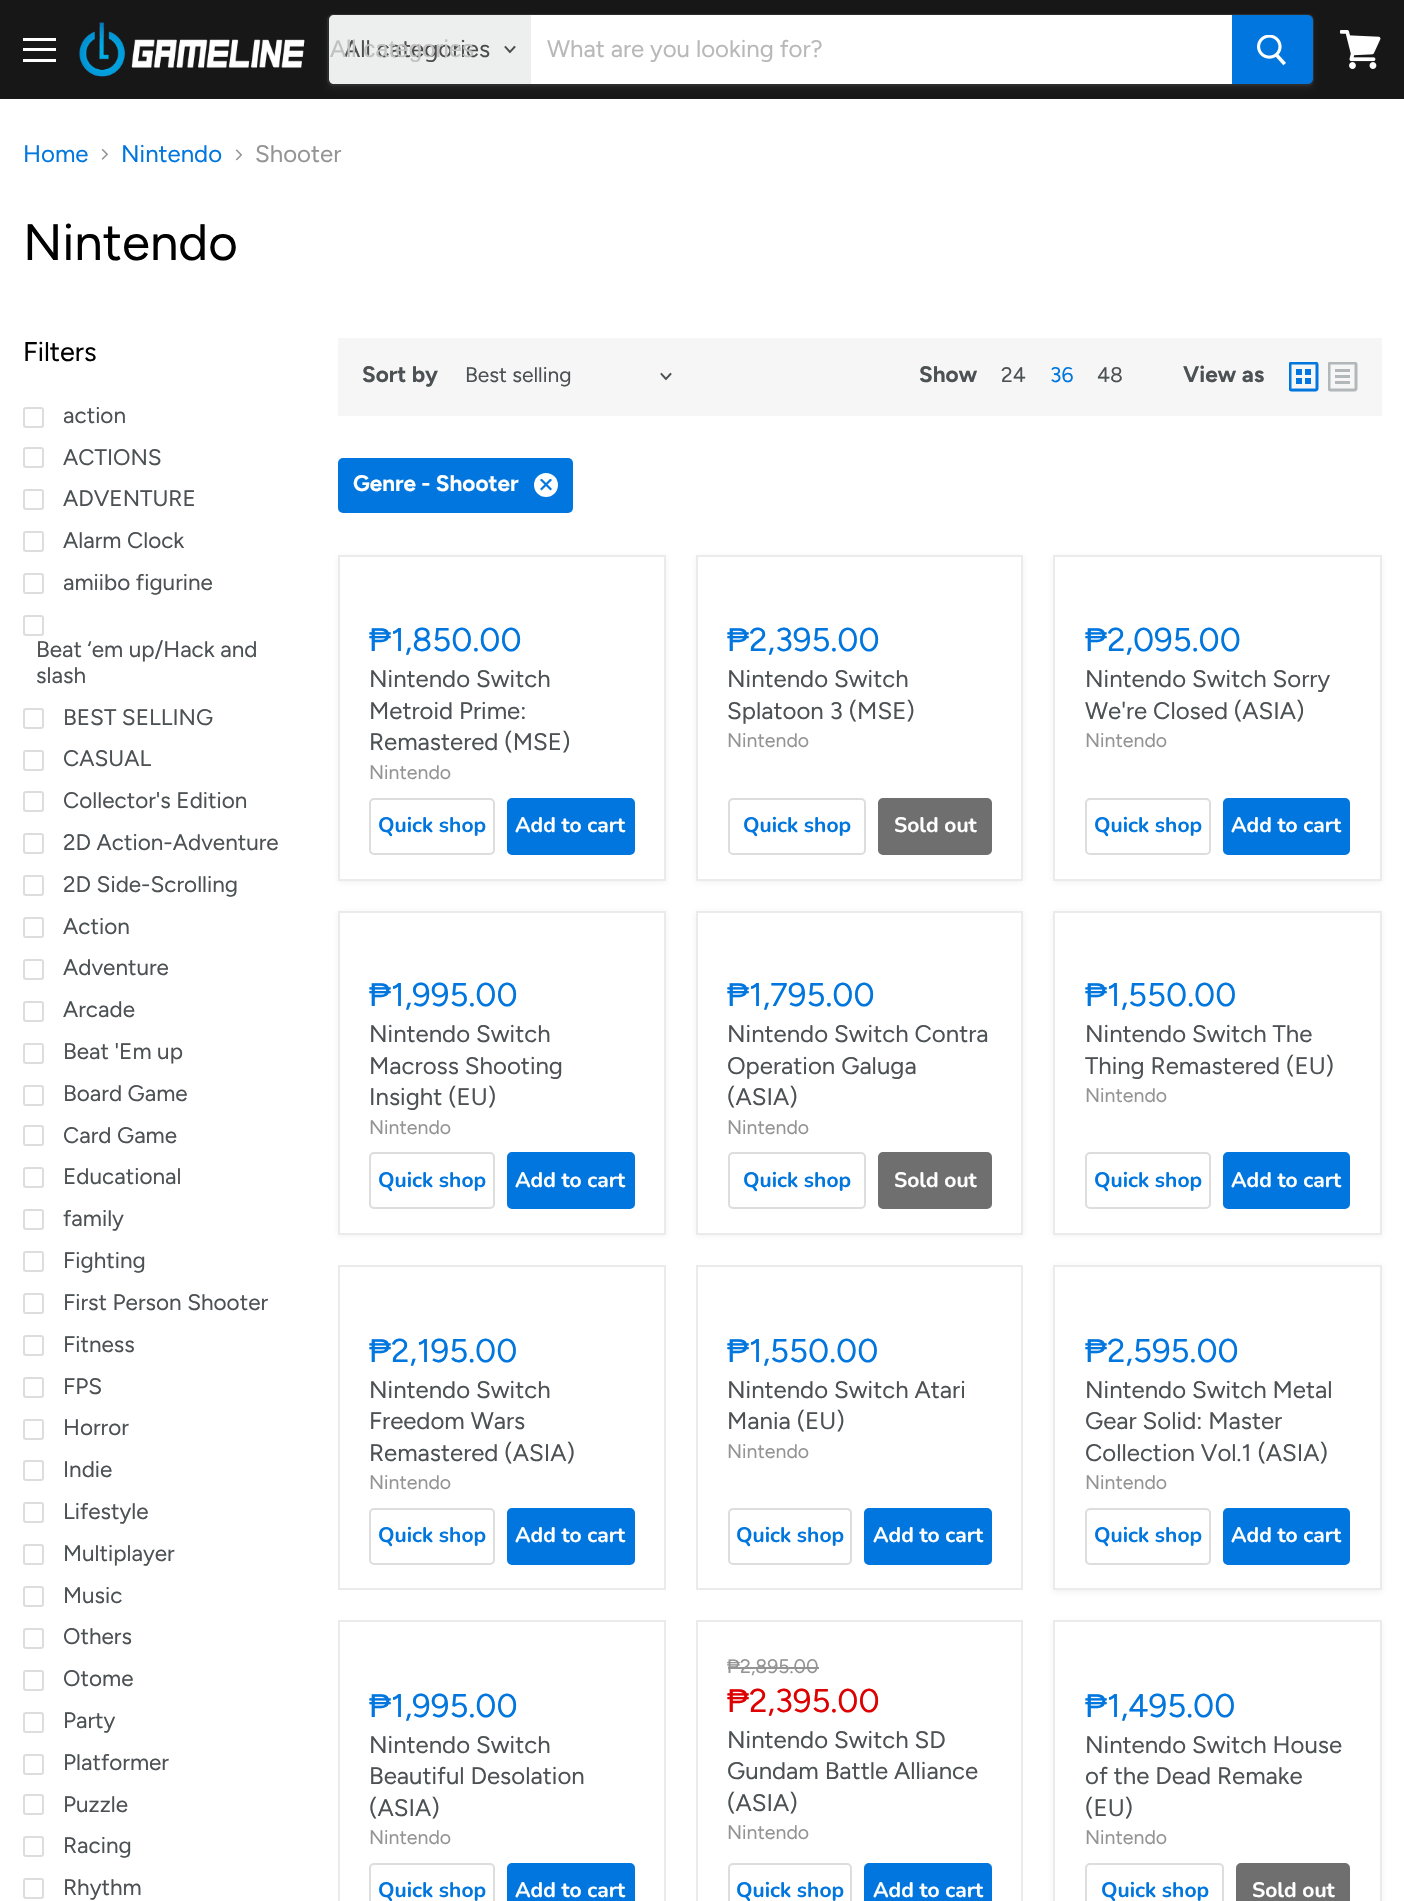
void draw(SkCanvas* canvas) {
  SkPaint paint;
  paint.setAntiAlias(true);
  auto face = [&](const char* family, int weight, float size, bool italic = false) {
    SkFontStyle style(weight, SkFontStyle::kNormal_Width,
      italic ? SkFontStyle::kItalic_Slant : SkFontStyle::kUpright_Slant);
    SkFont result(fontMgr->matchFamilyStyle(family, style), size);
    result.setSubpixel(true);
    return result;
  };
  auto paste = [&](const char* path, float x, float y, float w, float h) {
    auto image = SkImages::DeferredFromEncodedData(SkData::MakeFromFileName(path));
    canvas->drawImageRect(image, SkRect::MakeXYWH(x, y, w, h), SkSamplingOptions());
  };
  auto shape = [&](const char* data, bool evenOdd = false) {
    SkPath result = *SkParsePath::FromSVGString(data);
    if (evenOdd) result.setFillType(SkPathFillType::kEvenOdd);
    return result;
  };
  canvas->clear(0xffffffff);
  {
    const struct { float x, y, w, h; SkColor color; } items[] = {
      {0, 0, 1404, 99, 0xff171717},
      {23, 38, 33, 3, 0xffffffff},
      {23, 48, 33, 3, 0xffffffff},
      {23, 59, 33, 3, 0xffffffff},
    };
    for (auto [x, y, w, h, color] : items) {
      paint.setColor(color);
      canvas->drawRect(SkRect::MakeXYWH(x, y, w, h), paint);
    }
  }
  paste("img/1.png", 79, 22, 226, 55);
  canvas->save();
  canvas->clipPath(shape("M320 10H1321V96H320ZM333 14H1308C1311.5 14 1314 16.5 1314 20V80C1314 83.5 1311.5 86 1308 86H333C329.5 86 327 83.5 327 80V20C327 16.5 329.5 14 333 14Z", true), true);
  paint.setColor(0x1c808080);
  paint.setMaskFilter(SkMaskFilter::MakeBlur(kNormal_SkBlurStyle, 2));
  canvas->drawRoundRect(SkRect::MakeXYWH(327, 17, 987, 72), 6, 6, paint);
  paint.setMaskFilter(nullptr);
  canvas->restore();
  paint.setStroke(true);
  paint.setStrokeWidth(2);
  paint.setColor(0x33808080);
  canvas->drawRoundRect(SkRect::MakeXYWH(328, 15, 985, 70), 5, 5, paint);
  paint.setStroke(false);
  paint.setColor(0xffedeeee);
  canvas->drawPath(shape("M334 15H531V84H334C331 84 329 82 329 79V20C329 17 331 15 334 15Z"), paint);
  paint.setStroke(true);
  paint.setStrokeWidth(1.9f);
  paint.setStrokeCap(SkPaint::kSquare_Cap);
  paint.setColor(0xff4d4d4d);
  canvas->drawPath(shape("M510 52L514.5 47M510 52L505.5 47"), paint);
  paint.setStroke(false);
  paint.setColor(0xffffffff);
  canvas->drawRect(SkRect::MakeXYWH(531, 15, 701, 69), paint);
  paint.setColor(0xff0076de);
  canvas->drawPath(shape("M1233 16H1308C1310 16 1312 18 1312 20V79C1312 81 1310 83 1308 83H1233Z"), paint);
  paint.setStroke(true);
  paint.setStrokeWidth(2);
  paint.setStrokeCap(SkPaint::kButt_Cap);
  canvas->drawPath(shape("M1233 16H1308C1310 16 1312 18 1312 20V79C1312 81 1310 83 1308 83H1233Z"), paint);
  paste("img/2.png", 1257, 35, 29, 31);
  paste("img/3.png", 1340, 30, 41, 39);
  paste("img/4.png", 101, 149, 7, 11);
  paste("img/5.png", 235, 149, 7, 12);
  paint.setColor(0xffdddddd);
  canvas->drawRoundRect(SkRect::MakeXYWH(24, 408, 19, 19), 2, 2, paint);
  canvas->drawRoundRect(SkRect::MakeXYWH(24, 448, 19, 19), 2, 2, paint);
  canvas->drawRoundRect(SkRect::MakeXYWH(24, 490, 19, 19), 2, 2, paint);
  canvas->drawRoundRect(SkRect::MakeXYWH(24, 532, 19, 19), 2, 2, paint);
  canvas->drawRoundRect(SkRect::MakeXYWH(24, 574, 19, 19), 2, 2, paint);
  canvas->drawRoundRect(SkRect::MakeXYWH(24, 616, 19, 19), 2, 2, paint);
  canvas->drawRoundRect(SkRect::MakeXYWH(24, 709, 19, 19), 2, 2, paint);
  canvas->drawRoundRect(SkRect::MakeXYWH(24, 751, 19, 19), 2, 2, paint);
  canvas->drawRoundRect(SkRect::MakeXYWH(24, 792, 19, 19), 2, 2, paint);
  canvas->drawRoundRect(SkRect::MakeXYWH(24, 834, 19, 19), 2, 2, paint);
  canvas->drawRoundRect(SkRect::MakeXYWH(24, 876, 19, 19), 2, 2, paint);
  canvas->drawRoundRect(SkRect::MakeXYWH(24, 918, 19, 19), 2, 2, paint);
  canvas->drawRoundRect(SkRect::MakeXYWH(24, 960, 19, 19), 2, 2, paint);
  canvas->drawRoundRect(SkRect::MakeXYWH(24, 1002, 19, 19), 2, 2, paint);
  canvas->drawRoundRect(SkRect::MakeXYWH(24, 1044, 19, 19), 2, 2, paint);
  canvas->drawRoundRect(SkRect::MakeXYWH(24, 1086, 19, 19), 2, 2, paint);
  canvas->drawRoundRect(SkRect::MakeXYWH(24, 1126, 19, 19), 2, 2, paint);
  canvas->drawRoundRect(SkRect::MakeXYWH(24, 1168, 19, 19), 2, 2, paint);
  canvas->drawRoundRect(SkRect::MakeXYWH(24, 1210, 19, 19), 2, 2, paint);
  canvas->drawRoundRect(SkRect::MakeXYWH(24, 1252, 19, 19), 2, 2, paint);
  canvas->drawRoundRect(SkRect::MakeXYWH(24, 1294, 19, 19), 2, 2, paint);
  canvas->drawRoundRect(SkRect::MakeXYWH(24, 1336, 19, 19), 2, 2, paint);
  canvas->drawRoundRect(SkRect::MakeXYWH(24, 1378, 19, 19), 2, 2, paint);
  canvas->drawRoundRect(SkRect::MakeXYWH(24, 1420, 19, 19), 2, 2, paint);
  canvas->drawRoundRect(SkRect::MakeXYWH(24, 1461, 19, 19), 2, 2, paint);
  canvas->drawRoundRect(SkRect::MakeXYWH(24, 1503, 19, 19), 2, 2, paint);
  canvas->drawRoundRect(SkRect::MakeXYWH(24, 1545, 19, 19), 2, 2, paint);
  canvas->drawRoundRect(SkRect::MakeXYWH(24, 1587, 19, 19), 2, 2, paint);
  canvas->drawRoundRect(SkRect::MakeXYWH(24, 1629, 19, 19), 2, 2, paint);
  canvas->drawRoundRect(SkRect::MakeXYWH(24, 1671, 19, 19), 2, 2, paint);
  canvas->drawRoundRect(SkRect::MakeXYWH(24, 1713, 19, 19), 2, 2, paint);
  canvas->drawRoundRect(SkRect::MakeXYWH(24, 1755, 19, 19), 2, 2, paint);
  canvas->drawRoundRect(SkRect::MakeXYWH(24, 1795, 19, 19), 2, 2, paint);
  canvas->drawRoundRect(SkRect::MakeXYWH(24, 1837, 19, 19), 2, 2, paint);
  canvas->drawRoundRect(SkRect::MakeXYWH(24, 1879, 19, 19), 2, 2, paint);
  paint.setStroke(false);
  paint.setColor(0xfff6f6f6);
  canvas->drawRect(SkRect::MakeXYWH(338, 338, 1044, 78), paint);
  paint.setStroke(true);
  paint.setStrokeWidth(1.9f);
  paint.setStrokeCap(SkPaint::kSquare_Cap);
  paint.setColor(0xff4c5154);
  canvas->drawPath(shape("M666 379L670.5 374M666 379L661.5 374"), paint);
  paste("img/6.png", 1289, 362, 30, 30);
  paste("img/7.png", 1328, 362, 30, 30);
  paint.setStroke(false);
  paint.setColor(0xff0076de);
  canvas->drawRoundRect(SkRect::MakeXYWH(338, 458, 235, 55), 5, 5, paint);
  paint.setColor(0xffffffff);
  canvas->drawCircle(546, 485, 12, paint);
  paste("img/8.png", 540, 479, 12, 12);
  paint.setColor(0x1c808080);
  paint.setMaskFilter(SkMaskFilter::MakeBlur(kNormal_SkBlurStyle, 3));
  canvas->drawRect(SkRect::MakeXYWH(338, 557, 328, 325), paint);
  paint.setMaskFilter(nullptr);
  paint.setColor(0xffffffff);
  canvas->drawRect(SkRect::MakeXYWH(339, 556, 326, 324), paint);
  paint.setStroke(true);
  paint.setStrokeWidth(2);
  paint.setStrokeCap(SkPaint::kButt_Cap);
  paint.setColor(0xffebebeb);
  canvas->drawRect(SkRect::MakeXYWH(339, 556, 326, 324), paint);
  paint.setColor(0xffdddddd);
  canvas->drawRoundRect(SkRect::MakeXYWH(370, 799, 124, 55), 4, 4, paint);
  paint.setStroke(false);
  paint.setColor(0xff0076de);
  canvas->drawRoundRect(SkRect::MakeXYWH(508, 799, 126, 55), 4, 4, paint);
  paint.setStroke(true);
  canvas->drawRoundRect(SkRect::MakeXYWH(508, 799, 126, 55), 4, 4, paint);
  paint.setStroke(false);
  paint.setColor(0x1c808080);
  paint.setMaskFilter(SkMaskFilter::MakeBlur(kNormal_SkBlurStyle, 3));
  canvas->drawRect(SkRect::MakeXYWH(696, 557, 327, 325), paint);
  paint.setMaskFilter(nullptr);
  paint.setColor(0xffffffff);
  canvas->drawRect(SkRect::MakeXYWH(697, 556, 325, 324), paint);
  paint.setStroke(true);
  paint.setColor(0xffebebeb);
  canvas->drawRect(SkRect::MakeXYWH(697, 556, 325, 324), paint);
  paint.setColor(0xffdddddd);
  canvas->drawRoundRect(SkRect::MakeXYWH(729, 799, 136, 55), 4, 4, paint);
  paint.setStroke(false);
  paint.setColor(0xff6f6f6f);
  canvas->drawRoundRect(SkRect::MakeXYWH(879, 799, 112, 55), 4, 4, paint);
  paint.setStroke(true);
  canvas->drawRoundRect(SkRect::MakeXYWH(879, 799, 112, 55), 4, 4, paint);
  paint.setStroke(false);
  paint.setColor(0x1c808080);
  paint.setMaskFilter(SkMaskFilter::MakeBlur(kNormal_SkBlurStyle, 3));
  canvas->drawRect(SkRect::MakeXYWH(1053, 557, 329, 325), paint);
  paint.setMaskFilter(nullptr);
  paint.setColor(0xffffffff);
  canvas->drawRect(SkRect::MakeXYWH(1054, 556, 327, 324), paint);
  paint.setStroke(true);
  paint.setColor(0xffebebeb);
  canvas->drawRect(SkRect::MakeXYWH(1054, 556, 327, 324), paint);
  paint.setColor(0xffdddddd);
  canvas->drawRoundRect(SkRect::MakeXYWH(1086, 799, 124, 55), 4, 4, paint);
  paint.setStroke(false);
  paint.setColor(0xff0076de);
  canvas->drawRoundRect(SkRect::MakeXYWH(1224, 799, 125, 55), 4, 4, paint);
  paint.setStroke(true);
  canvas->drawRoundRect(SkRect::MakeXYWH(1224, 799, 125, 55), 4, 4, paint);
  paint.setStroke(false);
  paint.setColor(0x1c808080);
  paint.setMaskFilter(SkMaskFilter::MakeBlur(kNormal_SkBlurStyle, 3));
  canvas->drawRect(SkRect::MakeXYWH(338, 912, 328, 324), paint);
  paint.setMaskFilter(nullptr);
  paint.setColor(0xffffffff);
  canvas->drawRect(SkRect::MakeXYWH(339, 912, 326, 322), paint);
  paint.setStroke(true);
  paint.setColor(0xffebebeb);
  canvas->drawRect(SkRect::MakeXYWH(339, 912, 326, 322), paint);
  paint.setColor(0xffdddddd);
  canvas->drawRoundRect(SkRect::MakeXYWH(370, 1153, 124, 55), 4, 4, paint);
  paint.setStroke(false);
  paint.setColor(0xff0076de);
  canvas->drawRoundRect(SkRect::MakeXYWH(508, 1153, 126, 55), 4, 4, paint);
  paint.setStroke(true);
  canvas->drawRoundRect(SkRect::MakeXYWH(508, 1153, 126, 55), 4, 4, paint);
  paint.setStroke(false);
  paint.setColor(0x1c808080);
  paint.setMaskFilter(SkMaskFilter::MakeBlur(kNormal_SkBlurStyle, 3));
  canvas->drawRect(SkRect::MakeXYWH(696, 912, 327, 324), paint);
  paint.setMaskFilter(nullptr);
  paint.setColor(0xffffffff);
  canvas->drawRect(SkRect::MakeXYWH(697, 912, 325, 322), paint);
  paint.setStroke(true);
  paint.setColor(0xffebebeb);
  canvas->drawRect(SkRect::MakeXYWH(697, 912, 325, 322), paint);
  paint.setColor(0xffdddddd);
  canvas->drawRoundRect(SkRect::MakeXYWH(729, 1153, 136, 55), 4, 4, paint);
  paint.setStroke(false);
  paint.setColor(0xff6f6f6f);
  canvas->drawRoundRect(SkRect::MakeXYWH(879, 1153, 112, 55), 4, 4, paint);
  paint.setStroke(true);
  canvas->drawRoundRect(SkRect::MakeXYWH(879, 1153, 112, 55), 4, 4, paint);
  paint.setStroke(false);
  paint.setColor(0x1c808080);
  paint.setMaskFilter(SkMaskFilter::MakeBlur(kNormal_SkBlurStyle, 3));
  canvas->drawRect(SkRect::MakeXYWH(1053, 912, 329, 324), paint);
  paint.setMaskFilter(nullptr);
  paint.setColor(0xffffffff);
  canvas->drawRect(SkRect::MakeXYWH(1054, 912, 327, 322), paint);
  paint.setStroke(true);
  paint.setColor(0xffebebeb);
  canvas->drawRect(SkRect::MakeXYWH(1054, 912, 327, 322), paint);
  paint.setColor(0xffdddddd);
  canvas->drawRoundRect(SkRect::MakeXYWH(1086, 1153, 124, 55), 4, 4, paint);
  paint.setStroke(false);
  paint.setColor(0xff0076de);
  canvas->drawRoundRect(SkRect::MakeXYWH(1224, 1153, 125, 55), 4, 4, paint);
  paint.setStroke(true);
  canvas->drawRoundRect(SkRect::MakeXYWH(1224, 1153, 125, 55), 4, 4, paint);
  paint.setColor(0xffebebeb);
  canvas->drawRect(SkRect::MakeXYWH(339, 1266, 326, 323), paint);
  paint.setColor(0xffdddddd);
  canvas->drawRoundRect(SkRect::MakeXYWH(370, 1509, 124, 55), 4, 4, paint);
  paint.setStroke(false);
  paint.setColor(0xff0076de);
  canvas->drawRoundRect(SkRect::MakeXYWH(508, 1509, 126, 55), 4, 4, paint);
  paint.setStroke(true);
  canvas->drawRoundRect(SkRect::MakeXYWH(508, 1509, 126, 55), 4, 4, paint);
  paint.setColor(0xffebebeb);
  canvas->drawRect(SkRect::MakeXYWH(697, 1266, 325, 323), paint);
  paint.setColor(0xffdddddd);
  canvas->drawRoundRect(SkRect::MakeXYWH(729, 1509, 122, 55), 4, 4, paint);
  paint.setStroke(false);
  paint.setColor(0xff0076de);
  canvas->drawRoundRect(SkRect::MakeXYWH(865, 1509, 126, 55), 4, 4, paint);
  paint.setStroke(true);
  canvas->drawRoundRect(SkRect::MakeXYWH(865, 1509, 126, 55), 4, 4, paint);
  paint.setStroke(false);
  paint.setColor(0x1c808080);
  paint.setMaskFilter(SkMaskFilter::MakeBlur(kNormal_SkBlurStyle, 3));
  canvas->drawRect(SkRect::MakeXYWH(1053, 1266, 329, 326), paint);
  paint.setMaskFilter(nullptr);
  paint.setColor(0xffffffff);
  canvas->drawRect(SkRect::MakeXYWH(1054, 1266, 327, 323), paint);
  paint.setStroke(true);
  paint.setColor(0xffebebeb);
  canvas->drawRect(SkRect::MakeXYWH(1054, 1266, 327, 323), paint);
  paint.setColor(0xffdddddd);
  canvas->drawRoundRect(SkRect::MakeXYWH(1086, 1509, 124, 55), 4, 4, paint);
  paint.setStroke(false);
  paint.setColor(0xff0076de);
  canvas->drawRoundRect(SkRect::MakeXYWH(1224, 1509, 125, 55), 4, 4, paint);
  paint.setStroke(true);
  canvas->drawRoundRect(SkRect::MakeXYWH(1224, 1509, 125, 55), 4, 4, paint);
  paint.setColor(0xffebebeb);
  canvas->drawRect(SkRect::MakeXYWH(339, 1621, 326, 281), paint);
  paint.setColor(0xffdddddd);
  canvas->drawRoundRect(SkRect::MakeXYWH(370, 1864, 124, 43), 4, 4, paint);
  paint.setStroke(false);
  paint.setColor(0xff0076de);
  canvas->drawRoundRect(SkRect::MakeXYWH(508, 1864, 126, 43), 4, 4, paint);
  paint.setStroke(true);
  canvas->drawRoundRect(SkRect::MakeXYWH(508, 1864, 126, 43), 4, 4, paint);
  paint.setColor(0xffebebeb);
  canvas->drawRect(SkRect::MakeXYWH(697, 1621, 325, 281), paint);
  paint.setStroke(false);
  paint.setColor(0xff949494);
  canvas->drawRect(SkRect::MakeXYWH(728, 1667, 91, 2), paint);
  paint.setStroke(true);
  paint.setColor(0xffdddddd);
  canvas->drawRoundRect(SkRect::MakeXYWH(729, 1864, 122, 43), 4, 4, paint);
  paint.setStroke(false);
  paint.setColor(0xff0076de);
  canvas->drawRoundRect(SkRect::MakeXYWH(865, 1864, 126, 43), 4, 4, paint);
  paint.setStroke(true);
  canvas->drawRoundRect(SkRect::MakeXYWH(865, 1864, 126, 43), 4, 4, paint);
  paint.setStroke(false);
  paint.setColor(0x1c808080);
  paint.setMaskFilter(SkMaskFilter::MakeBlur(kNormal_SkBlurStyle, 3));
  canvas->drawRect(SkRect::MakeXYWH(1053, 1622, 329, 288), paint);
  paint.setMaskFilter(nullptr);
  paint.setColor(0xffffffff);
  canvas->drawRect(SkRect::MakeXYWH(1054, 1621, 327, 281), paint);
  paint.setStroke(true);
  paint.setColor(0xffebebeb);
  canvas->drawRect(SkRect::MakeXYWH(1054, 1621, 327, 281), paint);
  paint.setColor(0xffdddddd);
  canvas->drawRoundRect(SkRect::MakeXYWH(1086, 1864, 137, 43), 4, 4, paint);
  paint.setStroke(false);
  paint.setColor(0xff6f6f6f);
  canvas->drawRoundRect(SkRect::MakeXYWH(1237, 1864, 112, 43), 4, 4, paint);
  paint.setStroke(true);
  canvas->drawRoundRect(SkRect::MakeXYWH(1237, 1864, 112, 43), 4, 4, paint);
  auto f0 = face("Figtree", 400, 24);
  paint.setStroke(false);
  paint.setColor(0xff4d4d4d);
  canvas->drawString("All categories", 344, 57, f0, paint);
  auto f1 = face("Liberation Sans", 400, 24);
  paint.setColor(0xffc0c0c0);
  canvas->drawString("All categories", 330, 57, f1, paint);
  paint.setColor(0xffb8b8b8);
  canvas->drawString("What are you looking for?", 547, 57, f0, paint);
  paint.setColor(0xff0076de);
  canvas->drawString("Home", 23, 162, f0, paint);
  canvas->drawString("Nintendo", 121, 162, f0, paint);
  paint.setColor(0xff949494);
  canvas->drawString("Shooter", 255, 162, f0, paint);
  auto f2 = face("Figtree", 400, 51);
  paint.setColor(0xff000000);
  canvas->drawString("Nintendo", 23, 260, f2, paint);
  auto f3 = face("Figtree", 400, 27);
  canvas->drawString("Filters", 23, 361, f3, paint);
  auto f4 = face("Figtree", 400, 22.5f);
  paint.setColor(0xff4c5154);
  {
    const struct { const char* s; float x, y; } items[] = {
      {"action", 63, 423},
      {"ACTIONS", 63, 465},
      {"ADVENTURE", 63, 506},
      {"Alarm Clock", 63, 548},
      {"amiibo figurine", 63, 590},
      {"Beat ‘em up/Hack and", 36, 657},
      {"slash", 36, 683},
      {"BEST SELLING", 63, 725},
      {"CASUAL", 63, 766},
      {"Collector's Edition", 63, 808},
      {"2D Action-Adventure", 63, 850},
      {"2D Side-Scrolling", 63, 892},
      {"Action", 63, 934},
      {"Adventure", 63, 975},
      {"Arcade", 63, 1017},
      {"Beat 'Em up", 63, 1059},
      {"Board Game", 63, 1101},
      {"Card Game", 63, 1143},
      {"Educational", 63, 1184},
      {"family", 63, 1226},
      {"Fighting", 63, 1268},
      {"First Person Shooter", 63, 1310},
      {"Fitness", 63, 1352},
      {"FPS", 63, 1394},
      {"Horror", 63, 1435},
      {"Indie", 63, 1477},
      {"Lifestyle", 63, 1519},
      {"Multiplayer", 63, 1561},
      {"Music", 63, 1603},
      {"Others", 63, 1644},
      {"Otome", 63, 1686},
      {"Party", 63, 1728},
      {"Platformer", 63, 1770},
      {"Puzzle", 63, 1812},
      {"Racing", 63, 1853},
      {"Rhythm", 63, 1895},
    };
    for (auto [s, x, y] : items) {
      canvas->drawString(s, x, y, f4, paint);
    }
  }
  auto f5 = face("Figtree", 700, 22.5f);
  canvas->drawString("Sort by", 362, 382, f5, paint);
  auto f6 = face("Figtree", 400, 21);
  canvas->drawString("Best selling", 465, 382, f6, paint);
  canvas->drawString("Show", 919, 382, f5, paint);
  canvas->drawString("24", 1001, 382, f6, paint);
  paint.setColor(0xff0076de);
  canvas->drawString("36", 1050, 382, f6, paint);
  paint.setColor(0xff4c5154);
  canvas->drawString("48", 1097, 382, f6, paint);
  canvas->drawString("View as", 1183, 382, f5, paint);
  paint.setColor(0xffffffff);
  canvas->drawString("Genre - Shooter", 353, 491, f5, paint);
  auto f7 = face("Liberation Sans", 400, 33);
  paint.setColor(0xff0076de);
  canvas->drawString("₱", 369, 651, f7, paint);
  auto f8 = face("Figtree", 400, 33);
  canvas->drawString("1,850.00", 391, 651, f8, paint);
  paint.setColor(0xff4c5154);
  {
    const struct { const char* s; float x, y; } items[] = {
      {"Nintendo Switch", 369, 687},
      {"Metroid Prime:", 369, 719},
      {"Remastered (MSE)", 369, 750},
    };
    for (auto [s, x, y] : items) {
      canvas->drawString(s, x, y, f0, paint);
    }
  }
  auto f9 = face("Figtree", 400, 19.5f);
  paint.setColor(0xff949494);
  canvas->drawString("Nintendo", 369, 779, f9, paint);
  auto f10 = face("Nunito", 700, 21);
  paint.setColor(0xff0076de);
  canvas->drawString("Quick shop", 378, 832, f10, paint);
  paint.setColor(0xffffffff);
  canvas->drawString("Add to cart", 515, 832, f10, paint);
  paint.setColor(0xff0076de);
  canvas->drawString("₱", 727, 651, f7, paint);
  canvas->drawString("2,395.00", 749, 651, f8, paint);
  paint.setColor(0xff4c5154);
  canvas->drawString("Nintendo Switch", 727, 687, f0, paint);
  canvas->drawString("Splatoon 3 (MSE)", 727, 719, f0, paint);
  paint.setColor(0xff949494);
  canvas->drawString("Nintendo", 727, 747, f9, paint);
  paint.setColor(0xff0076de);
  canvas->drawString("Quick shop", 743, 832, f10, paint);
  paint.setColor(0xffffffff);
  canvas->drawString("Sold out", 894, 832, f10, paint);
  paint.setColor(0xff0076de);
  canvas->drawString("₱", 1085, 651, f7, paint);
  canvas->drawString("2,095.00", 1107, 651, f8, paint);
  paint.setColor(0xff4c5154);
  canvas->drawString("Nintendo Switch Sorry", 1085, 687, f0, paint);
  canvas->drawString("We're Closed (ASIA)", 1085, 719, f0, paint);
  paint.setColor(0xff949494);
  canvas->drawString("Nintendo", 1085, 747, f9, paint);
  paint.setColor(0xff0076de);
  canvas->drawString("Quick shop", 1094, 832, f10, paint);
  paint.setColor(0xffffffff);
  canvas->drawString("Add to cart", 1231, 832, f10, paint);
  paint.setColor(0xff0076de);
  canvas->drawString("₱", 369, 1006, f7, paint);
  canvas->drawString("1,995.00", 391, 1006, f8, paint);
  paint.setColor(0xff4c5154);
  {
    const struct { const char* s; float x, y; } items[] = {
      {"Nintendo Switch", 369, 1042},
      {"Macross Shooting", 369, 1074},
      {"Insight (EU)", 369, 1105},
    };
    for (auto [s, x, y] : items) {
      canvas->drawString(s, x, y, f0, paint);
    }
  }
  paint.setColor(0xff949494);
  canvas->drawString("Nintendo", 369, 1134, f9, paint);
  paint.setColor(0xff0076de);
  canvas->drawString("Quick shop", 378, 1187, f10, paint);
  paint.setColor(0xffffffff);
  canvas->drawString("Add to cart", 515, 1187, f10, paint);
  paint.setColor(0xff0076de);
  canvas->drawString("₱", 727, 1006, f7, paint);
  canvas->drawString("1,795.00", 749, 1006, f8, paint);
  paint.setColor(0xff4c5154);
  {
    const struct { const char* s; float x, y; } items[] = {
      {"Nintendo Switch Contra", 727, 1042},
      {"Operation Galuga", 727, 1074},
      {"(ASIA)", 727, 1105},
    };
    for (auto [s, x, y] : items) {
      canvas->drawString(s, x, y, f0, paint);
    }
  }
  paint.setColor(0xff949494);
  canvas->drawString("Nintendo", 727, 1134, f9, paint);
  paint.setColor(0xff0076de);
  canvas->drawString("Quick shop", 743, 1187, f10, paint);
  paint.setColor(0xffffffff);
  canvas->drawString("Sold out", 894, 1187, f10, paint);
  paint.setColor(0xff0076de);
  canvas->drawString("₱", 1085, 1006, f7, paint);
  canvas->drawString("1,550.00", 1107, 1006, f8, paint);
  paint.setColor(0xff4c5154);
  canvas->drawString("Nintendo Switch The", 1085, 1042, f0, paint);
  canvas->drawString("Thing Remastered (EU)", 1085, 1074, f0, paint);
  paint.setColor(0xff949494);
  canvas->drawString("Nintendo", 1085, 1102, f9, paint);
  paint.setColor(0xff0076de);
  canvas->drawString("Quick shop", 1094, 1187, f10, paint);
  paint.setColor(0xffffffff);
  canvas->drawString("Add to cart", 1231, 1187, f10, paint);
  paint.setColor(0xff0076de);
  canvas->drawString("₱", 369, 1362, f7, paint);
  canvas->drawString("2,195.00", 391, 1362, f8, paint);
  paint.setColor(0xff4c5154);
  {
    const struct { const char* s; float x, y; } items[] = {
      {"Nintendo Switch", 369, 1398},
      {"Freedom Wars", 369, 1429},
      {"Remastered (ASIA)", 369, 1461},
    };
    for (auto [s, x, y] : items) {
      canvas->drawString(s, x, y, f0, paint);
    }
  }
  paint.setColor(0xff949494);
  canvas->drawString("Nintendo", 369, 1489, f9, paint);
  paint.setColor(0xff0076de);
  canvas->drawString("Quick shop", 378, 1542, f10, paint);
  paint.setColor(0xffffffff);
  canvas->drawString("Add to cart", 515, 1542, f10, paint);
  paint.setColor(0xff0076de);
  canvas->drawString("₱", 727, 1362, f7, paint);
  canvas->drawString("1,550.00", 749, 1362, f8, paint);
  paint.setColor(0xff4c5154);
  canvas->drawString("Nintendo Switch Atari", 727, 1398, f0, paint);
  canvas->drawString("Mania (EU)", 727, 1429, f0, paint);
  paint.setColor(0xff949494);
  canvas->drawString("Nintendo", 727, 1458, f9, paint);
  paint.setColor(0xff0076de);
  canvas->drawString("Quick shop", 736, 1542, f10, paint);
  paint.setColor(0xffffffff);
  canvas->drawString("Add to cart", 873, 1542, f10, paint);
  paint.setColor(0xff0076de);
  canvas->drawString("₱", 1085, 1362, f7, paint);
  canvas->drawString("2,595.00", 1107, 1362, f8, paint);
  paint.setColor(0xff4c5154);
  {
    const struct { const char* s; float x, y; } items[] = {
      {"Nintendo Switch Metal", 1085, 1398},
      {"Gear Solid: Master", 1085, 1429},
      {"Collection Vol.1 (ASIA)", 1085, 1461},
    };
    for (auto [s, x, y] : items) {
      canvas->drawString(s, x, y, f0, paint);
    }
  }
  paint.setColor(0xff949494);
  canvas->drawString("Nintendo", 1085, 1489, f9, paint);
  paint.setColor(0xff0076de);
  canvas->drawString("Quick shop", 1094, 1542, f10, paint);
  paint.setColor(0xffffffff);
  canvas->drawString("Add to cart", 1231, 1542, f10, paint);
  paint.setColor(0xff0076de);
  canvas->drawString("₱", 369, 1717, f7, paint);
  canvas->drawString("1,995.00", 391, 1717, f8, paint);
  paint.setColor(0xff4c5154);
  {
    const struct { const char* s; float x, y; } items[] = {
      {"Nintendo Switch", 369, 1753},
      {"Beautiful Desolation", 369, 1784},
      {"(ASIA)", 369, 1816},
    };
    for (auto [s, x, y] : items) {
      canvas->drawString(s, x, y, f0, paint);
    }
  }
  paint.setColor(0xff949494);
  canvas->drawString("Nintendo", 369, 1844, f9, paint);
  paint.setColor(0xff0076de);
  canvas->drawString("Quick shop", 378, 1897, f10, paint);
  paint.setColor(0xffffffff);
  canvas->drawString("Add to cart", 515, 1897, f10, paint);
  auto f11 = face("Liberation Sans", 400, 19.5f);
  paint.setColor(0xff949494);
  canvas->drawString("₱", 727, 1673, f11, paint);
  canvas->drawString("2,895.00", 740, 1673, f9, paint);
  paint.setColor(0xffde0101);
  canvas->drawString("₱", 727, 1712, f7, paint);
  canvas->drawString("2,395.00", 749, 1712, f8, paint);
  paint.setColor(0xff4c5154);
  {
    const struct { const char* s; float x, y; } items[] = {
      {"Nintendo Switch SD", 727, 1748},
      {"Gundam Battle Alliance", 727, 1779},
      {"(ASIA)", 727, 1811},
    };
    for (auto [s, x, y] : items) {
      canvas->drawString(s, x, y, f0, paint);
    }
  }
  paint.setColor(0xff949494);
  canvas->drawString("Nintendo", 727, 1839, f9, paint);
  paint.setColor(0xff0076de);
  canvas->drawString("Quick shop", 736, 1897, f10, paint);
  paint.setColor(0xffffffff);
  canvas->drawString("Add to cart", 873, 1897, f10, paint);
  paint.setColor(0xff0076de);
  canvas->drawString("₱", 1085, 1717, f7, paint);
  canvas->drawString("1,495.00", 1107, 1717, f8, paint);
  paint.setColor(0xff4c5154);
  {
    const struct { const char* s; float x, y; } items[] = {
      {"Nintendo Switch House", 1085, 1753},
      {"of the Dead Remake", 1085, 1784},
      {"(EU)", 1085, 1816},
    };
    for (auto [s, x, y] : items) {
      canvas->drawString(s, x, y, f0, paint);
    }
  }
  paint.setColor(0xff949494);
  canvas->drawString("Nintendo", 1085, 1844, f9, paint);
  paint.setColor(0xff0076de);
  canvas->drawString("Quick shop", 1101, 1897, f10, paint);
  paint.setColor(0xffffffff);
  canvas->drawString("Sold out", 1252, 1897, f10, paint);
}
